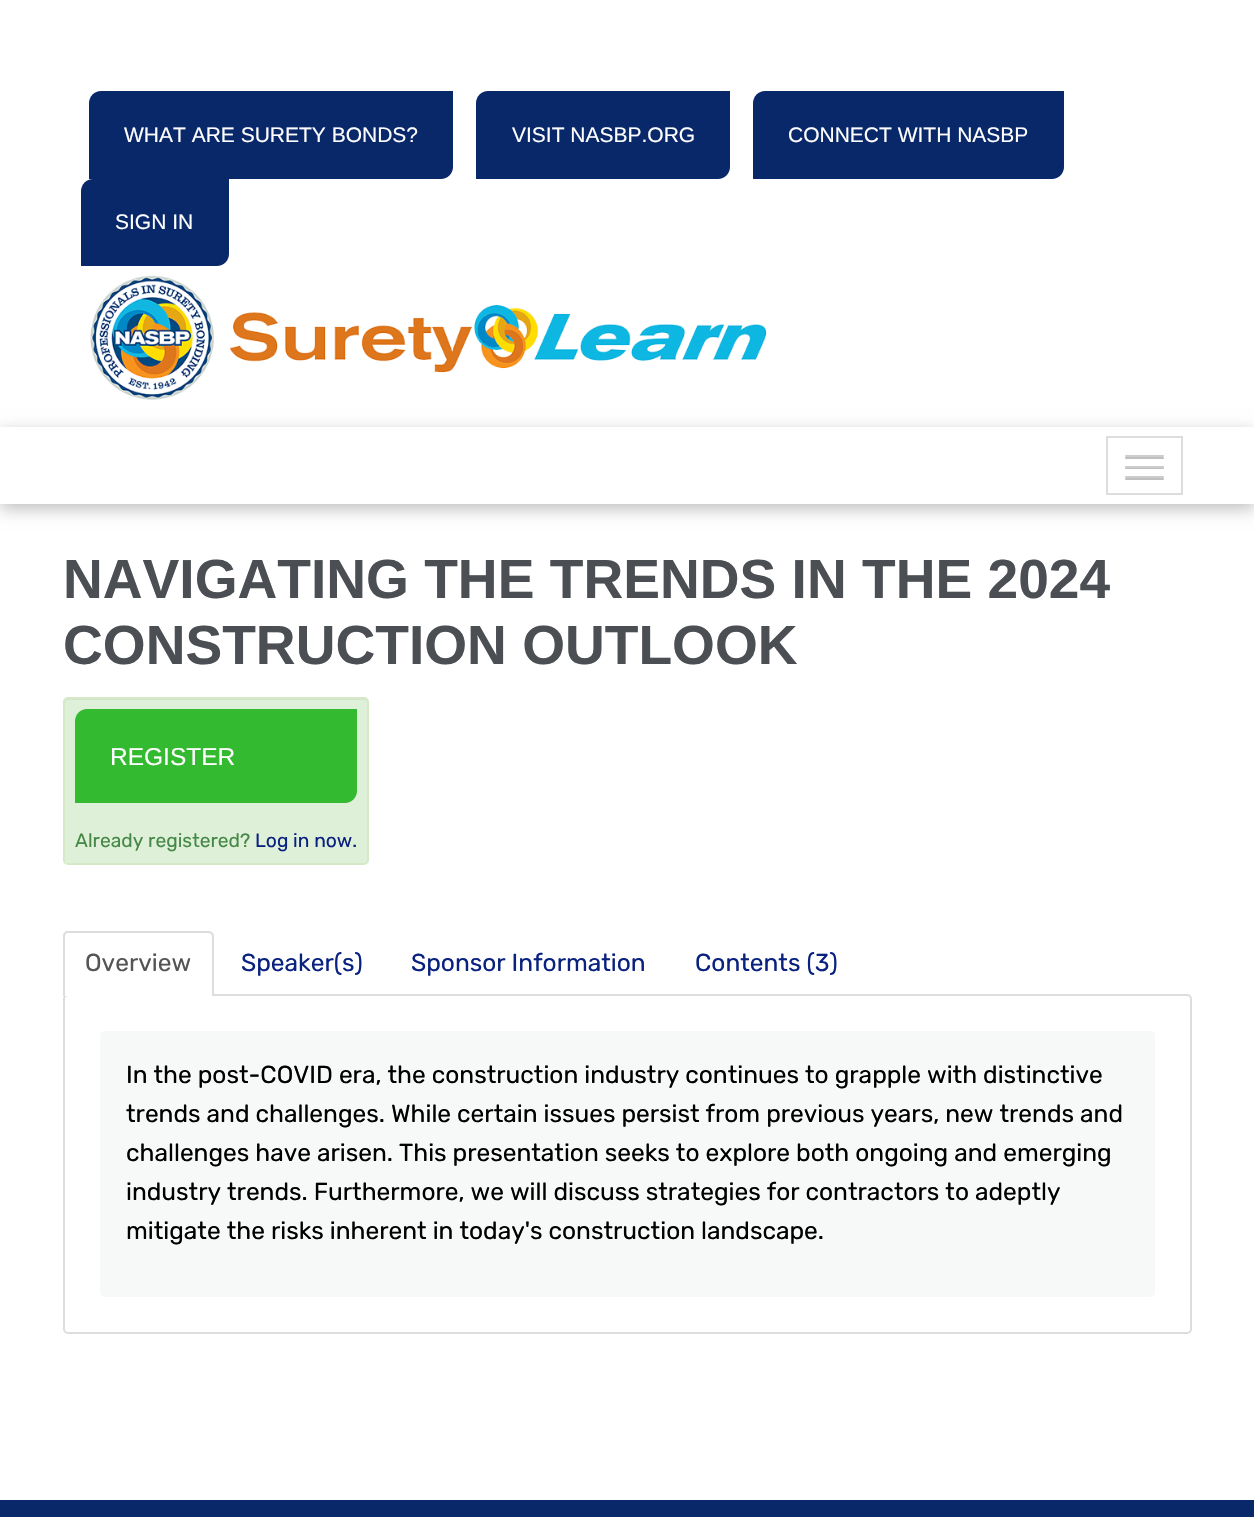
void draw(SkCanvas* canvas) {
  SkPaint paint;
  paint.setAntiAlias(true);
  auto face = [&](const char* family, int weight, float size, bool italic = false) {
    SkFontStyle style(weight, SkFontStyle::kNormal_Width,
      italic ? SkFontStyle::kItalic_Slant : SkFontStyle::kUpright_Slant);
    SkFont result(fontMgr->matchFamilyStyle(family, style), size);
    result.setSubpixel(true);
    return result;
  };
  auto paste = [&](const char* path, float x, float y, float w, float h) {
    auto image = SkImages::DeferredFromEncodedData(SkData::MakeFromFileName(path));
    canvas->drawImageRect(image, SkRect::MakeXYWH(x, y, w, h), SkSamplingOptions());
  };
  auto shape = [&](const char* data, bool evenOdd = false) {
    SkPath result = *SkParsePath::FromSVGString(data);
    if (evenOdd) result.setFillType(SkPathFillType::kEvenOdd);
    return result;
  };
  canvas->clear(0xffffffff);
  paint.setColor(0xff092869);
  canvas->drawPath(shape("M101 91H453V167C453 173.5 447.5 179 441 179H89V103C89 96.5 94.5 91 101 91Z"), paint);
  canvas->drawPath(shape("M488 91H730V167C730 173.5 724.5 179 718 179H476V103C476 96.5 481.5 91 488 91Z"), paint);
  canvas->drawPath(shape("M765 91H1064V167C1064 173.5 1058.5 179 1052 179H753V103C753 96.5 758.5 91 765 91Z"), paint);
  canvas->drawPath(shape("M93 179H229V254C229 260.5 223.5 266 217 266H81V191C81 184.5 86.5 179 93 179Z"), paint);
  paste("img/1.png", 90, 275, 677, 125);
  canvas->save();
  canvas->clipPath(shape("M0 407H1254V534H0ZM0 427H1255V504H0Z", true), true);
  paint.setColor(0x40000000);
  paint.setMaskFilter(SkMaskFilter::MakeBlur(kNormal_SkBlurStyle, 8));
  canvas->drawRect(SkRect::MakeXYWH(0, 432, 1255, 77), paint);
  paint.setMaskFilter(nullptr);
  canvas->restore();
  paint.setStroke(true);
  paint.setStrokeWidth(2);
  paint.setColor(0xffdddddd);
  canvas->drawRect(SkRect::MakeXYWH(1107, 437, 75, 57), paint);
  paint.setStroke(false);
  paint.setColor(0xffbfbfbf);
  canvas->drawRoundRect(SkRect::MakeXYWH(1125, 457, 39, 2), 1, 1, paint);
  paint.setColor(0xffcccccc);
  canvas->drawRoundRect(SkRect::MakeXYWH(1125, 455, 39, 2), 1, 1, paint);
  paint.setColor(0xffbfbfbf);
  canvas->drawPath(shape("M1125.5 467C1124.5 467.5 1125 469 1126 469H1163.5C1164 468.5 1164 467.5 1163.5 467Z"), paint);
  paint.setColor(0xffcccccc);
  canvas->drawRoundRect(SkRect::MakeXYWH(1125, 466, 39, 2), 1, 1, paint);
  paint.setColor(0xffbfbfbf);
  canvas->drawRoundRect(SkRect::MakeXYWH(1125, 478, 39, 2), 1, 1, paint);
  paint.setColor(0xffcccccc);
  canvas->drawRoundRect(SkRect::MakeXYWH(1125, 476, 39, 2), 1, 1, paint);
  paint.setColor(0xffdff0d8);
  canvas->drawRoundRect(SkRect::MakeXYWH(65, 698, 303, 165), 4, 4, paint);
  paint.setColor(0x0d000000);
  canvas->drawPath(shape("M68 700H364C366 700 368 702 368 704V702C368 700 366 698 364 698H69C67 698 65 700 65 702V704C65 702 66 700 68 700Z"), paint);
  paint.setStroke(true);
  paint.setColor(0xffd6e9c6);
  canvas->drawRoundRect(SkRect::MakeXYWH(64, 698, 304, 166), 4, 4, paint);
  paint.setStroke(false);
  paint.setColor(0xff34ba31);
  canvas->drawPath(shape("M87 709H357V791C357 797.5 351.5 803 345 803H75V721C75 714.5 80.5 709 87 709Z"), paint);
  paint.setStroke(true);
  paint.setColor(0xffdddddd);
  canvas->drawRoundRect(SkRect::MakeXYWH(64, 995, 1127, 338), 4, 4, paint);
  paint.setStroke(false);
  paint.setColor(0xffffffff);
  canvas->drawPath(shape("M68 931H209C212 931 214 933 214 936V996H63V936C63 933 65 931 68 931Z"), paint);
  paint.setColor(0xffdddddd);
  canvas->drawPath(shape("M68 931H208C211 931 214 933 214 936V996H63V936C63 933 65 931 68 931ZM68 933H208C210 933 212 934 212 936V996H65V936C65 934 66 933 68 933Z", true), paint);
  paint.setColor(0xfff7f8f8);
  canvas->drawRoundRect(SkRect::MakeXYWH(100, 1031, 1055, 266), 5, 5, paint);
  paint.setColor(0xff092869);
  canvas->drawRect(SkRect::MakeXYWH(0, 1500, 1254, 17), paint);
  auto f0 = face("Liberation Sans", 400, 21);
  paint.setColor(0xffffffff);
  {
    const struct { const char* s; float x, y; } items[] = {
      {"WHAT ARE SURETY BONDS?", 124, 142},
      {"VISIT NASBP.ORG", 512, 142},
      {"CONNECT WITH NASBP", 788, 142},
      {"SIGN IN", 115, 229},
    };
    for (auto [s, x, y] : items) {
      canvas->drawString(s, x, y, f0, paint);
    }
  }
  auto f1 = face("Liberation Sans", 700, 55.1f);
  paint.setColor(0xff4b4f54);
  canvas->drawString("NAVIGATING THE TRENDS IN THE 2024", 63, 598, f1, paint);
  canvas->drawString("CONSTRUCTION OUTLOOK", 63, 664, f1, paint);
  auto f2 = face("Liberation Sans", 400, 24.5f);
  paint.setColor(0xffffffff);
  canvas->drawString("REGISTER", 110, 765, f2, paint);
  auto f3 = face("Rubik", 300, 19.25f);
  paint.setColor(0xff468847);
  canvas->drawString("Already registered?", 75, 847, f3, paint);
  paint.setColor(0xff09227f);
  canvas->drawString("Log in now.", 255, 847, f3, paint);
  auto f4 = face("Rubik", 300, 24.5f);
  paint.setColor(0xff555555);
  canvas->drawString("Overview", 85, 971, f4, paint);
  paint.setColor(0xff09227f);
  {
    const struct { const char* s; float x, y; } items[] = {
      {"Speaker(s)", 241, 971},
      {"Sponsor Information", 411, 971},
      {"Contents (3)", 695, 971},
    };
    for (auto [s, x, y] : items) {
      canvas->drawString(s, x, y, f4, paint);
    }
  }
  paint.setColor(0xff000000);
  {
    const struct { const char* s; float x, y; } items[] = {
      {"In the post-COVID era, the construction industry continues to grapple with distinctive", 126, 1083},
      {"trends and challenges. While certain issues persist from previous years, new trends and", 126, 1122},
      {"challenges have arisen. This presentation seeks to explore both ongoing and emerging", 126, 1161},
      {"industry trends. Furthermore, we will discuss strategies for contractors to adeptly", 126, 1200},
      {"mitigate the risks inherent in today's construction landscape.", 126, 1239},
    };
    for (auto [s, x, y] : items) {
      canvas->drawString(s, x, y, f4, paint);
    }
  }
}
